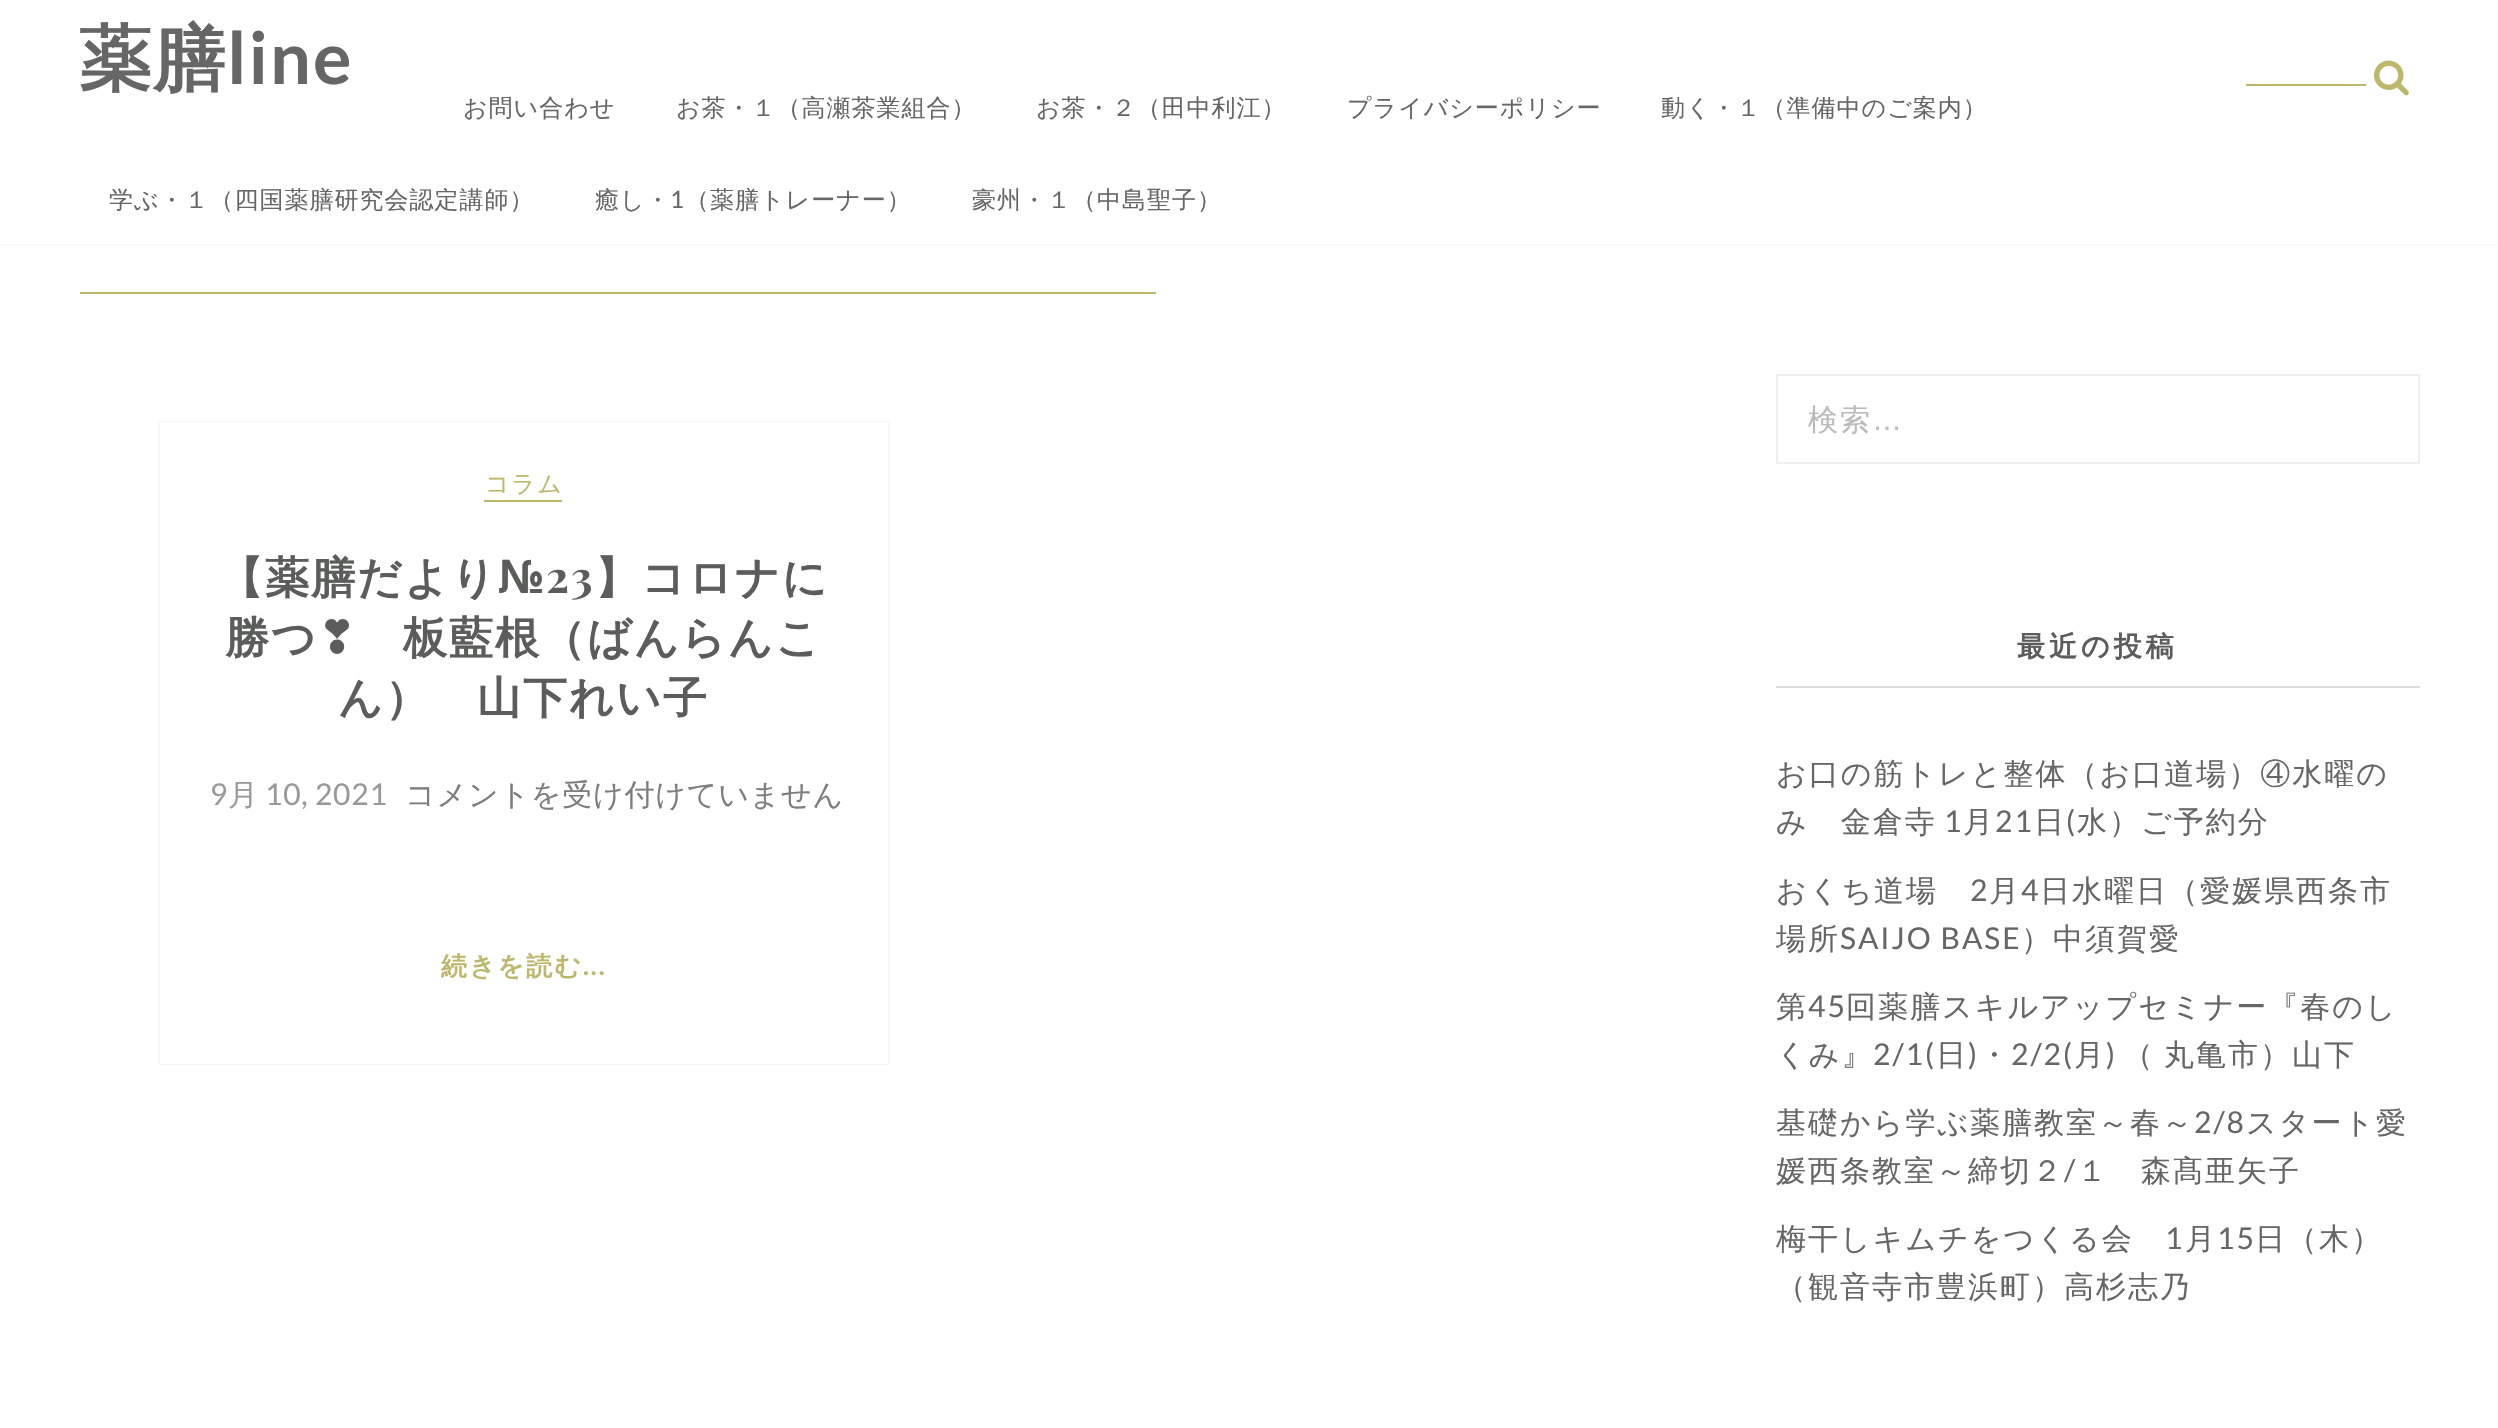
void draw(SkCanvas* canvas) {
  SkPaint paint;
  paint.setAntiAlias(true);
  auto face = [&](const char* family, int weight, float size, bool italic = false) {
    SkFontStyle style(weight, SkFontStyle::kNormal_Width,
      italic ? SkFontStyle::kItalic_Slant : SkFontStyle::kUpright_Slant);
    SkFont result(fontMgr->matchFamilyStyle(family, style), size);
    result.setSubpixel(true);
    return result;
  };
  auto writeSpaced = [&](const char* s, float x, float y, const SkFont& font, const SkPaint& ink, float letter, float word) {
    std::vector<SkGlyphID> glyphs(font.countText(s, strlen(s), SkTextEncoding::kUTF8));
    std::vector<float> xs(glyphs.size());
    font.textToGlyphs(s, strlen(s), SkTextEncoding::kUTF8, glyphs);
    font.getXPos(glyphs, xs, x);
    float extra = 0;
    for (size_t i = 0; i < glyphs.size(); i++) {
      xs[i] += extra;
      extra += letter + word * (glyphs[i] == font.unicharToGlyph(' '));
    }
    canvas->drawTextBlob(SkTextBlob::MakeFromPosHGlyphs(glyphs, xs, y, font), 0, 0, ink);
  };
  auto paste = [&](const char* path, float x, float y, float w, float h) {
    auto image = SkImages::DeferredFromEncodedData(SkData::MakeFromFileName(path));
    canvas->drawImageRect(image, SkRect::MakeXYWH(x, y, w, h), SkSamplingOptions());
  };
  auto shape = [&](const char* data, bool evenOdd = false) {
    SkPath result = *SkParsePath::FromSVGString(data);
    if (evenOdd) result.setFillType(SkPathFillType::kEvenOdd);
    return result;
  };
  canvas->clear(0xffffffff);
  paint.setColor(0xfff8f8f8);
  canvas->drawRect(SkRect::MakeXYWH(0, 244, 2498, 2), paint);
  paint.setColor(0xffbdb76b);
  canvas->drawRect(SkRect::MakeXYWH(2246, 84, 120, 2), paint);
  paste("img/1.png", 2374, 60, 35, 36);
  canvas->drawRect(SkRect::MakeXYWH(80, 292, 1076, 2), paint);
  canvas->save();
  canvas->clipPath(shape("M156 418H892V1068H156ZM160 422H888V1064H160Z", true), true);
  paint.setColor(0xffdddddd);
  paint.setMaskFilter(SkMaskFilter::MakeBlur(kNormal_SkBlurStyle, 1));
  canvas->drawRect(SkRect::MakeXYWH(160, 422, 728, 642), paint);
  paint.setMaskFilter(nullptr);
  canvas->restore();
  paint.setColor(0xffbdb76b);
  canvas->drawRect(SkRect::MakeXYWH(484, 500, 78, 2), paint);
  paint.setStroke(true);
  paint.setStrokeWidth(2);
  paint.setColor(0xffeeeeee);
  canvas->drawRect(SkRect::MakeXYWH(1777, 375, 642, 88), paint);
  paint.setStroke(false);
  paint.setColor(0xffdddddd);
  canvas->drawRect(SkRect::MakeXYWH(1776, 686, 644, 2), paint);
  auto f0 = face("WenQuanYi Zen Hei", 700, 72);
  paint.setColor(0xff666666);
  writeSpaced("薬膳", 79, 84, f0, paint, 2, 0);
  auto f1 = face("Lato", 700, 72);
  writeSpaced("line", 227, 84, f1, paint, 2, 0);
  auto f2 = face("WenQuanYi Zen Hei", 500, 24);
  {
    const struct { const char* s; float x, y; } items[] = {
      {"お問い合わせ", 463, 116},
      {"お茶・１（高瀬茶業組合）", 676, 116},
      {"お茶・２（田中利江）", 1036, 116},
      {"プライバシーポリシー", 1347, 116},
      {"動く・１（準備中のご案内）", 1661, 116},
      {"学ぶ・１（四国薬膳研究会認定講師）", 109, 208},
      {"癒し・", 595, 208},
    };
    for (auto [s, x, y] : items) {
      writeSpaced(s, x, y, f2, paint, 1, 0);
    }
  }
  auto f3 = face("Lato", 400, 24);
  writeSpaced("1", 670, 208, f3, paint, 1, 0);
  writeSpaced("（薬膳トレーナー）", 685, 208, f2, paint, 1, 0);
  writeSpaced("豪州・１（中島聖子）", 972, 208, f2, paint, 1, 0);
  paint.setColor(0xffbdb76b);
  writeSpaced("コラム", 485, 492, f2, paint, 1.5f, 0);
  auto f4 = face("WenQuanYi Zen Hei", 700, 44);
  paint.setColor(0xff5a5d5a);
  writeSpaced("【薬膳だより", 219, 593, f4, paint, 2, 0);
  auto f5 = face("DejaVu Sans", 700, 44);
  writeSpaced("№", 498, 593, f5, paint, 2, 0);
  auto f6 = face("Playfair Display", 700, 44);
  writeSpaced("23", 546, 593, f6, paint, 2, 0);
  writeSpaced("】コロナに", 595, 593, f4, paint, 2, 0);
  writeSpaced("勝つ", 225, 653, f4, paint, 2, 0);
  writeSpaced("❣", 318, 653, f5, paint, 2, 0);
  writeSpaced("板藍根（ばんらんこ", 403, 653, f4, paint, 2, 0);
  writeSpaced("ん）　山下れい子", 338, 713, f4, paint, 2, 0);
  auto f7 = face("Lato", 400, 30);
  paint.setColor(0xff999999);
  writeSpaced("9", 210, 805, f7, paint, 0.75f, 0);
  auto f8 = face("WenQuanYi Zen Hei", 500, 30);
  writeSpaced("月", 228, 805, f8, paint, 0.75f, 0);
  writeSpaced("10, 2021", 265, 805, f7, paint, 0.75f, 0);
  paint.setColor(0xff7d7d7d);
  writeSpaced("コメントを受け付けていません", 405, 805, f8, paint, 0.75f, 0);
  auto f9 = face("WenQuanYi Zen Hei", 700, 26);
  paint.setColor(0xffbdb76b);
  writeSpaced("続きを読む", 441, 975, f9, paint, 2, 0);
  auto f10 = face("Lato", 700, 26);
  writeSpaced("...", 583, 975, f10, paint, 2, 0);
  paint.setColor(0xffbababa);
  writeSpaced("検索", 1808, 430, f8, paint, 2, 0);
  auto f11 = face("Liberation Sans", 400, 30);
  writeSpaced("…", 1872, 430, f11, paint, 2, 0);
  auto f12 = face("WenQuanYi Zen Hei", 700, 28);
  paint.setColor(0xff5a5d5a);
  writeSpaced("最近の投稿", 2017, 656, f12, paint, 4, 0);
  paint.setColor(0xff666666);
  {
    const struct { const char* s; float x, y; } items[] = {
      {"お口の筋トレと整体（お口道場）④水曜の", 1776, 784},
      {"み　金倉寺", 1776, 832},
      {"日 水）ご予約分", 2034, 832},
    };
    for (auto [s, x, y] : items) {
      writeSpaced(s, x, y, f8, paint, 2, 0);
    }
  }
  writeSpaced("1", 1944, 832, f7, paint, 2, 0);
  writeSpaced("月", 1963, 832, f8, paint, 2, 0);
  writeSpaced("21", 1995, 832, f7, paint, 2, 0);
  writeSpaced("(", 2066, 832, f7, paint, 2, 0);
  writeSpaced("おくち道場", 1776, 901, f8, paint, 2, 0);
  writeSpaced("2", 1970, 901, f7, paint, 2, 0);
  writeSpaced("月", 1989, 901, f8, paint, 2, 0);
  writeSpaced("4", 2021, 901, f7, paint, 2, 0);
  writeSpaced("日水曜日（愛媛県西条市", 2040, 901, f8, paint, 2, 0);
  canvas->save();
  canvas->clipRect(SkRect::MakeXYWH(1776, 570, 644, 748));
  writeSpaced("場所", 1776, 949, f8, paint, 2, 0);
  canvas->restore();
  writeSpaced("SAIJO BASE", 1840, 949, f7, paint, 2, 0);
  writeSpaced("）中須賀愛", 2021, 949, f8, paint, 2, 0);
  writeSpaced("第", 1776, 1017, f8, paint, 2, 0);
  writeSpaced("45", 1808, 1017, f7, paint, 2, 0);
  writeSpaced("回薬膳スキルアップセミナー『春のし", 1846, 1017, f8, paint, 2, 0);
  writeSpaced("くみ』", 1776, 1065, f8, paint, 2, 0);
  {
    const struct { const char* s; float x, y; } items[] = {
      {"2/1(", 1873, 1065},
      {"2/2(", 2011, 1065},
      {")", 2106, 1065},
    };
    for (auto [s, x, y] : items) {
      writeSpaced(s, x, y, f7, paint, 2, 0);
    }
  }
  writeSpaced("（ 丸亀市）山下", 2123, 1065, f8, paint, 2, -2);
  writeSpaced("日 ・", 1936, 1065, f8, paint, 2, 0);
  writeSpaced(")", 1968, 1065, f7, paint, 2, 0);
  writeSpaced("月", 2074, 1065, f8, paint, 2, 0);
  writeSpaced("基礎から学ぶ薬膳教室～春～", 1776, 1133, f8, paint, 2, 0);
  writeSpaced("2/8", 2194, 1133, f7, paint, 2, 0);
  writeSpaced("スタート愛", 2246, 1133, f8, paint, 2, 0);
  writeSpaced("媛西条教室～締切２", 1776, 1181, f8, paint, 2, 0);
  writeSpaced("/", 2064, 1181, f7, paint, 2, 0);
  writeSpaced("１　森髙亜矢子", 2077, 1181, f8, paint, 2, 0);
  writeSpaced("梅干しキムチをつくる会", 1776, 1249, f8, paint, 2, 0);
  writeSpaced("1", 2165, 1249, f7, paint, 2, 0);
  writeSpaced("月", 2185, 1249, f8, paint, 2, 0);
  writeSpaced("15", 2217, 1249, f7, paint, 2, 0);
  writeSpaced("日（木）", 2255, 1249, f8, paint, 2, 0);
  writeSpaced("（観音寺市豊浜町）高杉志乃", 1776, 1297, f8, paint, 2, 0);
}
